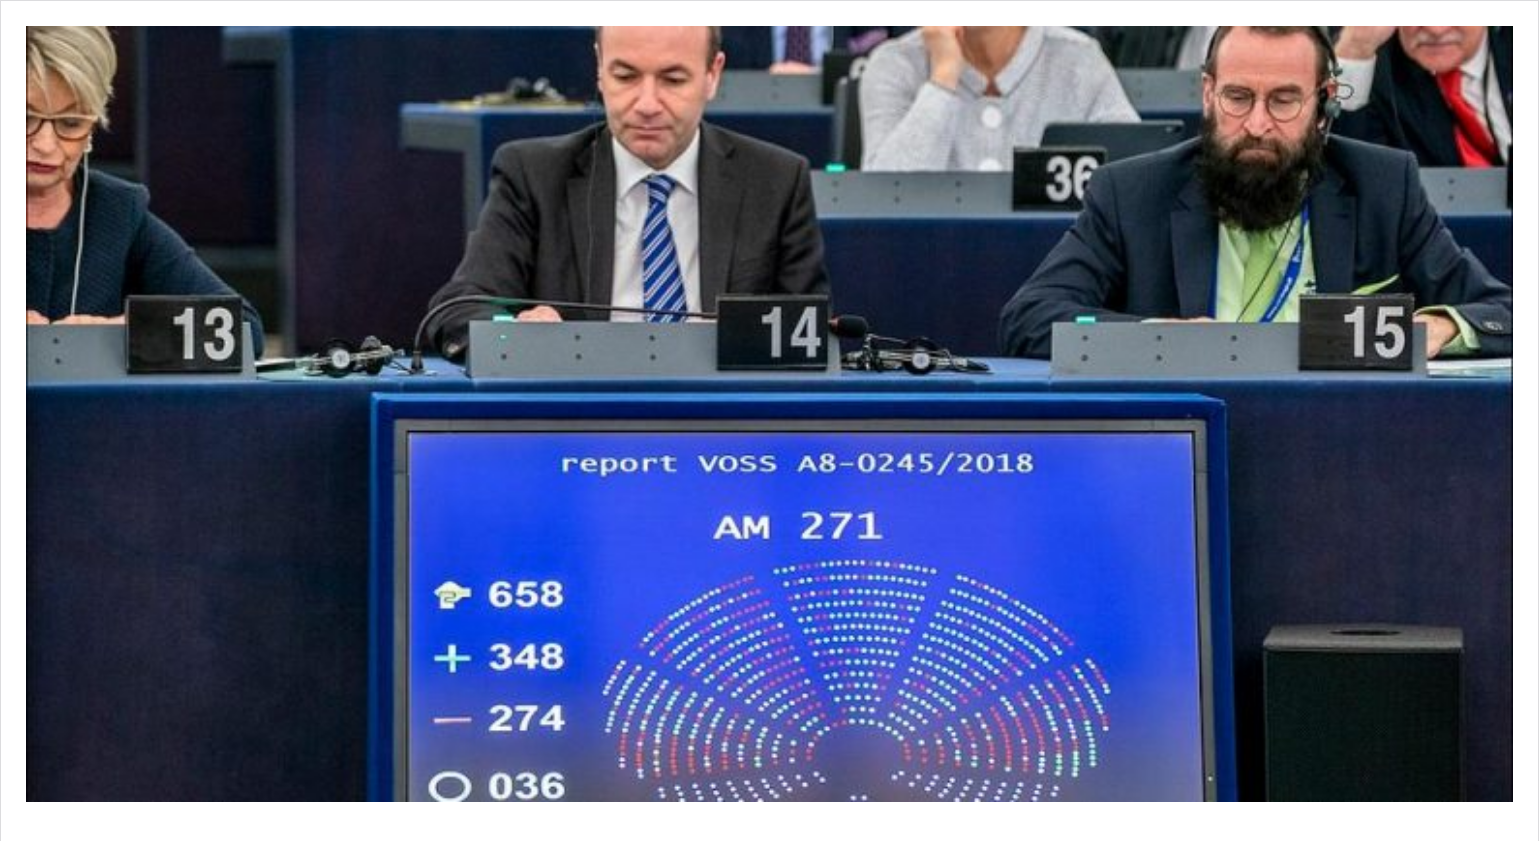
void draw(SkCanvas* canvas) {
  SkPaint paint;
  paint.setAntiAlias(true);
  auto paste = [&](const char* path, float x, float y, float w, float h) {
    auto image = SkImages::DeferredFromEncodedData(SkData::MakeFromFileName(path));
    canvas->drawImageRect(image, SkRect::MakeXYWH(x, y, w, h), SkSamplingOptions());
  };
  canvas->clear(0xffffffff);
  paint.setStroke(true);
  paint.setStrokeWidth(1);
  paint.setColor(0xffdcdcde);
  canvas->drawRect(SkRect::MakeXYWH(0.5f, 0.5f, 1538, 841), paint);
  paste("img/1.png", 26, 26, 1487, 776);
}
